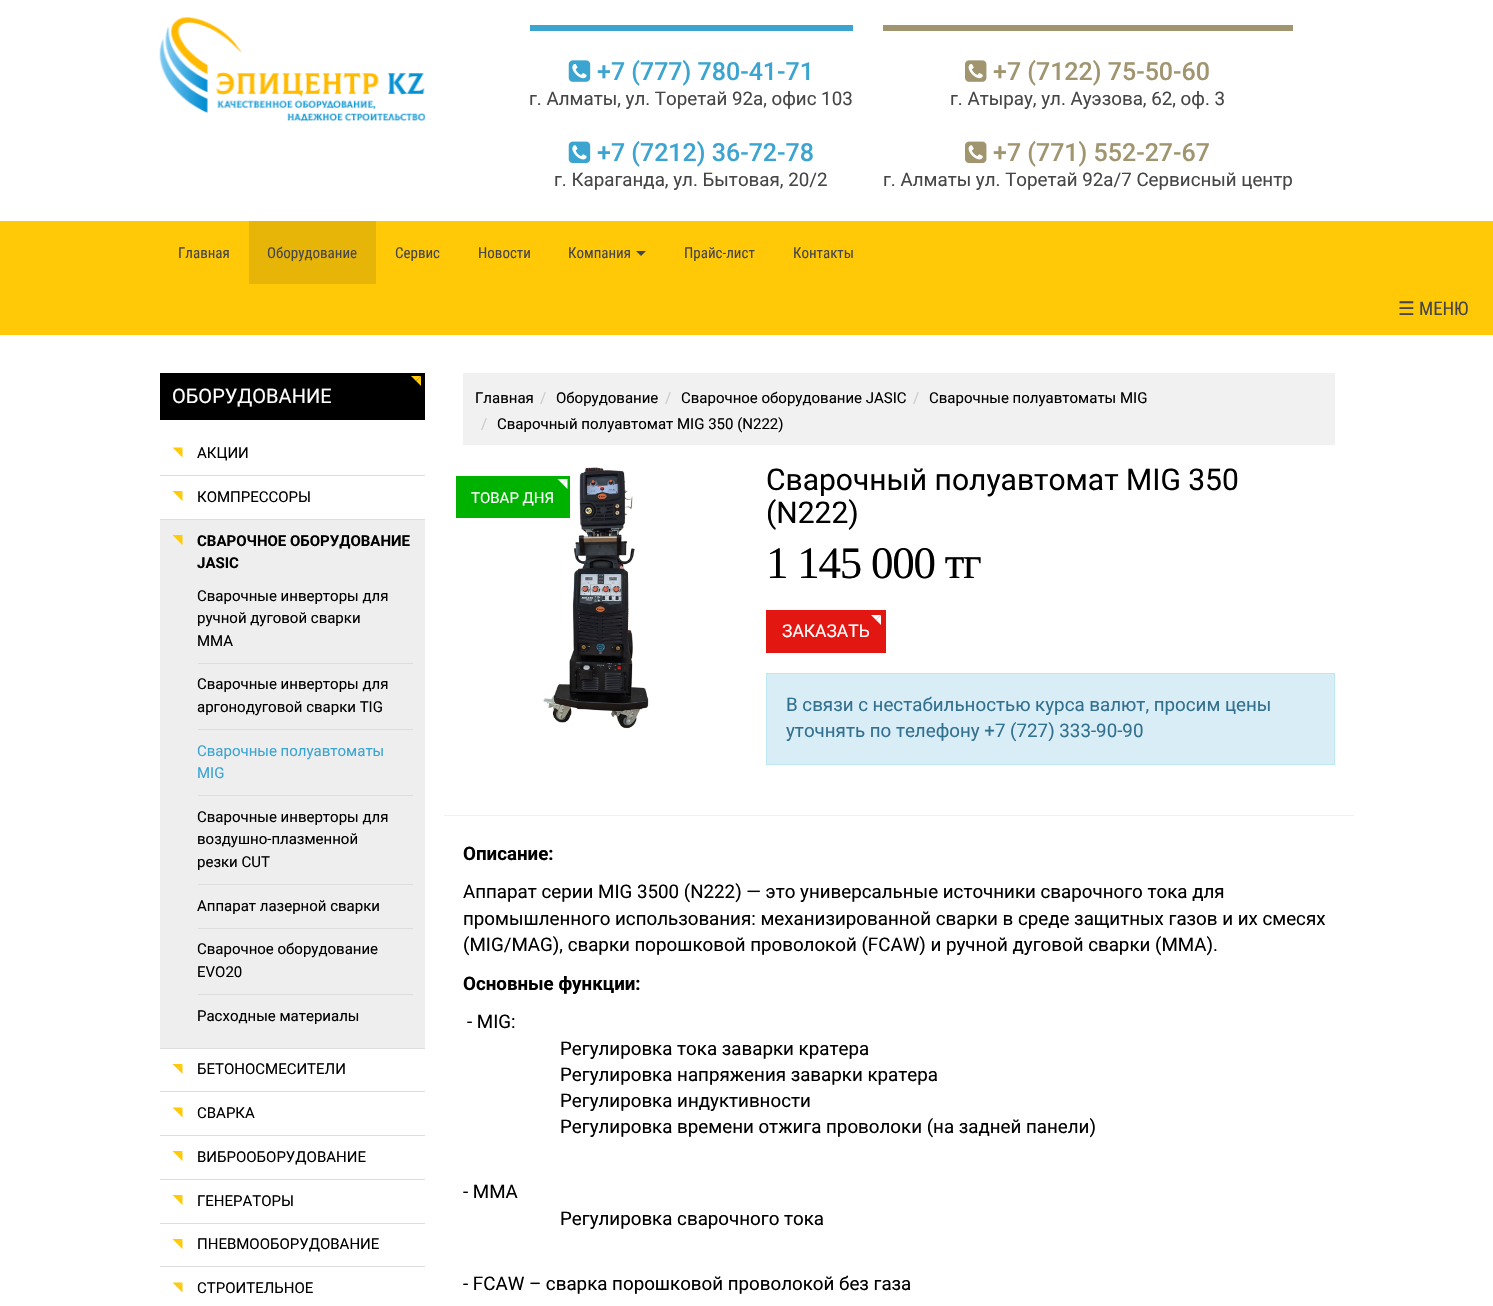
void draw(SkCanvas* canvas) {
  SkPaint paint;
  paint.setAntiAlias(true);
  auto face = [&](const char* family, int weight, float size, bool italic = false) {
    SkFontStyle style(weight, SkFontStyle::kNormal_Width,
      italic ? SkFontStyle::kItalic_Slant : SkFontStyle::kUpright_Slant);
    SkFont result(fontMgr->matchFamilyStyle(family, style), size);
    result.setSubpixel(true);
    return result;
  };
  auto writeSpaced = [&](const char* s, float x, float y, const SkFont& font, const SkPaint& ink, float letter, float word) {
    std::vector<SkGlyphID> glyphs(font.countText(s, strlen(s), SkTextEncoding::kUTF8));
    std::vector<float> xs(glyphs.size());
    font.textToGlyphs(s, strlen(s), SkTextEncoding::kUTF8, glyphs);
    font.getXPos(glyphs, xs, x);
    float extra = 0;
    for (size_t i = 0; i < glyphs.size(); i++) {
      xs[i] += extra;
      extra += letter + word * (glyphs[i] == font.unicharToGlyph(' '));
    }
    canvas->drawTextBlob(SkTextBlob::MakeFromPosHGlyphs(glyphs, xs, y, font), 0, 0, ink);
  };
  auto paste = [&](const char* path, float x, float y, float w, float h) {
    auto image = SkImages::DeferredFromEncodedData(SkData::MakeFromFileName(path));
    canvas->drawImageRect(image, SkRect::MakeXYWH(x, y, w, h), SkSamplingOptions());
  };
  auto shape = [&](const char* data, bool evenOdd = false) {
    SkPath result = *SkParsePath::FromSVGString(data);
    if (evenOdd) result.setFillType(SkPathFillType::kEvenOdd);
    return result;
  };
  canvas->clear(0xffffffff);
  paste("img/1.png", 159, 17, 266, 105);
  paint.setColor(0xff3ca4d1);
  canvas->drawRect(SkRect::MakeXYWH(530, 25, 323, 6), paint);
  paste("img/2.png", 568, 60, 23, 22);
  paste("img/3.png", 568, 141, 23, 23);
  paint.setColor(0xffa0956f);
  canvas->drawRect(SkRect::MakeXYWH(883, 25, 410, 6), paint);
  paste("img/4.png", 965, 60, 22, 22);
  paste("img/5.png", 965, 141, 22, 23);
  paint.setColor(0xffffc908);
  canvas->drawRect(SkRect::MakeXYWH(0, 221, 1493, 114), paint);
  paint.setColor(0xffe6b507);
  canvas->drawRect(SkRect::MakeXYWH(249, 221, 127, 63), paint);
  paint.setColor(0xff464646);
  canvas->drawPath(shape("M636 251H646L641 256Z"), paint);
  paint.setColor(0xff000000);
  canvas->drawRect(SkRect::MakeXYWH(160, 373, 265, 47), paint);
  paint.setColor(0xffffc908);
  canvas->drawPath(shape("M411 376H421L416 381Z"), paint);
  canvas->drawPath(shape("M421 376V386L416 381Z"), paint);
  paint.setColor(0xffdddddd);
  canvas->drawRect(SkRect::MakeXYWH(160, 475, 265, 1), paint);
  paint.setColor(0xffffc908);
  canvas->drawPath(shape("M172.5 447.5H182.5L177.5 452.5Z"), paint);
  canvas->drawPath(shape("M182.5 447.5V457.5L177.5 452.5Z"), paint);
  paint.setColor(0xffdddddd);
  canvas->drawRect(SkRect::MakeXYWH(160, 519, 265, 1), paint);
  paint.setColor(0xffffc908);
  canvas->drawPath(shape("M172.5 491H182.5L177.5 496Z"), paint);
  canvas->drawPath(shape("M182.5 491V501L177.5 496Z"), paint);
  paint.setColor(0xffeeeeee);
  canvas->drawRect(SkRect::MakeXYWH(160, 520, 265, 528), paint);
  paint.setColor(0xffdddddd);
  canvas->drawRect(SkRect::MakeXYWH(160, 1048, 265, 1), paint);
  paint.setColor(0xffffc908);
  canvas->drawPath(shape("M172.5 535H182.5L177.5 540Z"), paint);
  canvas->drawPath(shape("M182.5 535V545L177.5 540Z"), paint);
  {
    const struct { float x, y, w, h; SkColor color; } items[] = {
      {198, 663, 215, 1, 0xffdddddd},
      {198, 729, 215, 1, 0xffdddddd},
      {198, 795, 215, 1, 0xffdddddd},
      {198, 884, 215, 1, 0xffdddddd},
      {198, 928, 215, 1, 0xffdddddd},
      {198, 994, 215, 1, 0xffdddddd},
      {160, 1091, 265, 1, 0xffdddddd},
    };
    for (auto [x, y, w, h, color] : items) {
      paint.setColor(color);
      canvas->drawRect(SkRect::MakeXYWH(x, y, w, h), paint);
    }
  }
  paint.setColor(0xffffc908);
  canvas->drawPath(shape("M172.5 1064H182.5L177.5 1069Z"), paint);
  canvas->drawPath(shape("M182.5 1064V1074L177.5 1069Z"), paint);
  paint.setColor(0xffdddddd);
  canvas->drawRect(SkRect::MakeXYWH(160, 1135, 265, 1), paint);
  paint.setColor(0xffffc908);
  canvas->drawPath(shape("M172.5 1107.5H182.5L177.5 1112.5Z"), paint);
  canvas->drawPath(shape("M182.5 1107.5V1117.5L177.5 1112.5Z"), paint);
  paint.setColor(0xffdddddd);
  canvas->drawRect(SkRect::MakeXYWH(160, 1179, 265, 1), paint);
  paint.setColor(0xffffc908);
  canvas->drawPath(shape("M172.5 1151H182.5L177.5 1156Z"), paint);
  canvas->drawPath(shape("M182.5 1151V1161L177.5 1156Z"), paint);
  paint.setColor(0xffdddddd);
  canvas->drawRect(SkRect::MakeXYWH(160, 1223, 265, 1), paint);
  paint.setColor(0xffffc908);
  canvas->drawPath(shape("M172.5 1195H182.5L177.5 1200Z"), paint);
  canvas->drawPath(shape("M182.5 1195V1205L177.5 1200Z"), paint);
  paint.setColor(0xffdddddd);
  canvas->drawRect(SkRect::MakeXYWH(160, 1266, 265, 1), paint);
  paint.setColor(0xffffc908);
  canvas->drawPath(shape("M172.5 1239H182.5L177.5 1244Z"), paint);
  canvas->drawPath(shape("M182.5 1239V1249L177.5 1244Z"), paint);
  canvas->drawPath(shape("M172.5 1282.5H182.5L177.5 1287.5Z"), paint);
  canvas->drawPath(shape("M182.5 1282.5V1292.5L177.5 1287.5Z"), paint);
  paint.setColor(0xfff1f1f1);
  canvas->drawRect(SkRect::MakeXYWH(463, 373, 872, 72), paint);
  paste("img/6.png", 543, 467, 106, 262);
  paint.setColor(0xff00b200);
  canvas->drawRect(SkRect::MakeXYWH(456, 476, 114, 42), paint);
  paint.setColor(0xffffffff);
  canvas->drawPath(shape("M557.5 479H567.5L562.5 484Z"), paint);
  canvas->drawPath(shape("M567.5 479V489L562.5 484Z"), paint);
  paint.setColor(0xffe21712);
  canvas->drawRect(SkRect::MakeXYWH(766, 610, 120, 43), paint);
  paint.setColor(0xffffffff);
  canvas->drawPath(shape("M871 615H881L876 620Z"), paint);
  canvas->drawPath(shape("M881 615V625L876 620Z"), paint);
  paint.setColor(0xffd9edf7);
  canvas->drawRect(SkRect::MakeXYWH(766.5f, 673.5f, 568, 91), paint);
  paint.setStroke(true);
  paint.setStrokeWidth(1);
  paint.setColor(0xffbce8f1);
  canvas->drawRect(SkRect::MakeXYWH(766.5f, 673.5f, 568, 91), paint);
  paint.setStroke(false);
  paint.setColor(0xfff1f1f1);
  canvas->drawRect(SkRect::MakeXYWH(444, 815, 910, 1), paint);
  auto f0 = face("Roboto", 500, 25);
  paint.setColor(0xff3ca4d1);
  canvas->drawString("+7 (777) 780-41-71", 597, 80, f0, paint);
  auto f1 = face("Roboto", 400, 18.75f);
  paint.setColor(0xff464646);
  canvas->drawString("г. Алматы, ул. Торетай 92а, офис 103", 529, 105, f1, paint);
  paint.setColor(0xff3ca4d1);
  canvas->drawString("+7 (7212) 36-72-78", 597, 161, f0, paint);
  paint.setColor(0xff464646);
  canvas->drawString("г. Караганда, ул. Бытовая, 20/2", 554, 186, f1, paint);
  paint.setColor(0xffa0956f);
  canvas->drawString("+7 (7122) 75-50-60", 993, 80, f0, paint);
  paint.setColor(0xff464646);
  canvas->drawString("г. Атырау, ул. Ауэзова, 62, оф. 3", 950, 105, f1, paint);
  paint.setColor(0xffa0956f);
  canvas->drawString("+7 (771) 552-27-67", 993, 161, f0, paint);
  paint.setColor(0xff464646);
  canvas->drawString("г. Алматы ул. Торетай 92а/7 Сервисный центр", 883, 186, f1, paint);
  auto f2 = face("Roboto Condensed", 400, 15);
  {
    const struct { const char* s; float x, y; } items[] = {
      {"Главная", 178, 258},
      {"Оборудование", 267, 258},
      {"Сервис", 395, 258},
      {"Новости", 478, 258},
      {"Компания", 568, 258},
      {"Прайс-лист", 684, 258},
      {"Контакты", 793, 258},
    };
    for (auto [s, x, y] : items) {
      canvas->drawString(s, x, y, f2, paint);
    }
  }
  auto f3 = face("DejaVu Sans", 400, 18.75f);
  canvas->drawString("☰", 1398, 315, f3, paint);
  auto f4 = face("Roboto Condensed", 400, 18.75f);
  canvas->drawString("МЕНЮ", 1419, 315, f4, paint);
  auto f5 = face("Roboto", 400, 20);
  paint.setColor(0xffffffff);
  canvas->drawString("ОБОРУДОВАНИЕ", 172, 403, f5, paint);
  auto f6 = face("Roboto", 400, 15);
  paint.setColor(0xff000000);
  canvas->drawString("АКЦИИ", 197, 458, f6, paint);
  canvas->drawString("КОМПРЕССОРЫ", 197, 502, f6, paint);
  auto f7 = face("Roboto", 700, 15);
  canvas->drawString("СВАРОЧНОЕ ОБОРУДОВАНИЕ", 197, 546, f7, paint);
  canvas->drawString("JASIC", 197, 568, f7, paint);
  {
    const struct { const char* s; float x, y; } items[] = {
      {"Сварочные инверторы для", 197, 601},
      {"ручной дуговой сварки", 197, 623},
      {"MMA", 197, 646},
      {"Сварочные инверторы для", 197, 689},
      {"аргонодуговой сварки TIG", 197, 712},
    };
    for (auto [s, x, y] : items) {
      canvas->drawString(s, x, y, f6, paint);
    }
  }
  paint.setColor(0xff3ca4d1);
  canvas->drawString("Сварочные полуавтоматы", 197, 756, f6, paint);
  canvas->drawString("MIG", 197, 778, f6, paint);
  paint.setColor(0xff000000);
  {
    const struct { const char* s; float x, y; } items[] = {
      {"Сварочные инверторы для", 197, 822},
      {"воздушно-плазменной", 197, 844},
      {"резки CUT", 197, 867},
      {"Аппарат лазерной сварки", 197, 911},
      {"Сварочное оборудование", 197, 954},
      {"EVO20", 197, 977},
      {"Расходные материалы", 197, 1021},
      {"БЕТОНОСМЕСИТЕЛИ", 197, 1074},
      {"СВАРКА", 197, 1118},
      {"ВИБРООБОРУДОВАНИЕ", 197, 1162},
      {"ГЕНЕРАТОРЫ", 197, 1206},
      {"ПНЕВМООБОРУДОВАНИЕ", 197, 1249},
      {"СТРОИТЕЛЬНОЕ", 197, 1293},
      {"Главная", 475, 403},
    };
    for (auto [s, x, y] : items) {
      canvas->drawString(s, x, y, f6, paint);
    }
  }
  paint.setColor(0xffcccccc);
  canvas->drawString("/", 540, 403, f6, paint);
  paint.setColor(0xff000000);
  canvas->drawString("Оборудование", 556, 403, f6, paint);
  paint.setColor(0xffcccccc);
  canvas->drawString("/", 665, 403, f6, paint);
  paint.setColor(0xff000000);
  canvas->drawString("Сварочное оборудование JASIC", 681, 403, f6, paint);
  paint.setColor(0xffcccccc);
  canvas->drawString("/", 913, 403, f6, paint);
  paint.setColor(0xff000000);
  canvas->drawString("Сварочные полуавтоматы MIG", 929, 403, f6, paint);
  paint.setColor(0xffcccccc);
  canvas->drawString("/", 481, 429, f6, paint);
  paint.setColor(0xff000000);
  canvas->drawString("Сварочный полуавтомат MIG 350 (N222)", 497, 429, f6, paint);
  paint.setColor(0xffffffff);
  canvas->drawString("ТОВАР ДНЯ", 471, 503, f6, paint);
  auto f8 = face("Roboto", 400, 30);
  paint.setColor(0xff000000);
  canvas->drawString("Сварочный полуавтомат MIG 350", 766, 490, f8, paint);
  canvas->drawString("(N222)", 766, 523, f8, paint);
  auto f9 = face("Liberation Serif", 400, 45);
  writeSpaced("1 145 000 тг", 766, 578, f9, paint, -1.25f, 0);
  auto f10 = face("Roboto", 400, 17.5f);
  paint.setColor(0xffffffff);
  canvas->drawString("ЗАКАЗАТЬ", 782, 637, f10, paint);
  paint.setColor(0xff31708f);
  canvas->drawString("В связи с нестабильностью курса валют, просим цены", 786, 711, f1, paint);
  canvas->drawString("уточнять по телефону +7 (727) 333-90-90", 786, 737, f1, paint);
  auto f11 = face("Roboto", 700, 18.75f);
  paint.setColor(0xff000000);
  canvas->drawString("Описание:", 463, 860, f11, paint);
  {
    const struct { const char* s; float x, y; } items[] = {
      {"Аппарат серии MIG 3500 (N222) — это универсальные источники сварочного тока для", 463, 898},
      {"промышленного использования: механизированной сварки в среде защитных газов и их смесях", 463, 925},
      {"(MIG/MAG), сварки порошковой проволокой (FCAW) и ручной дуговой сварки (MMA).", 463, 951},
    };
    for (auto [s, x, y] : items) {
      canvas->drawString(s, x, y, f1, paint);
    }
  }
  canvas->drawString("Основные функции:", 463, 990, f11, paint);
  {
    const struct { const char* s; float x, y; } items[] = {
      {"- MIG:", 467, 1028},
      {"Регулировка тока заварки кратера", 560, 1055},
      {"Регулировка напряжения заварки кратера", 560, 1081},
      {"Регулировка индуктивности", 560, 1107},
      {"Регулировка времени отжига проволоки (на задней панели)", 560, 1133},
      {"- MMA", 463, 1198},
      {"Регулировка сварочного тока", 560, 1225},
      {"- FCAW – сварка порошковой проволокой без газа", 463, 1290},
    };
    for (auto [s, x, y] : items) {
      canvas->drawString(s, x, y, f1, paint);
    }
  }
}
